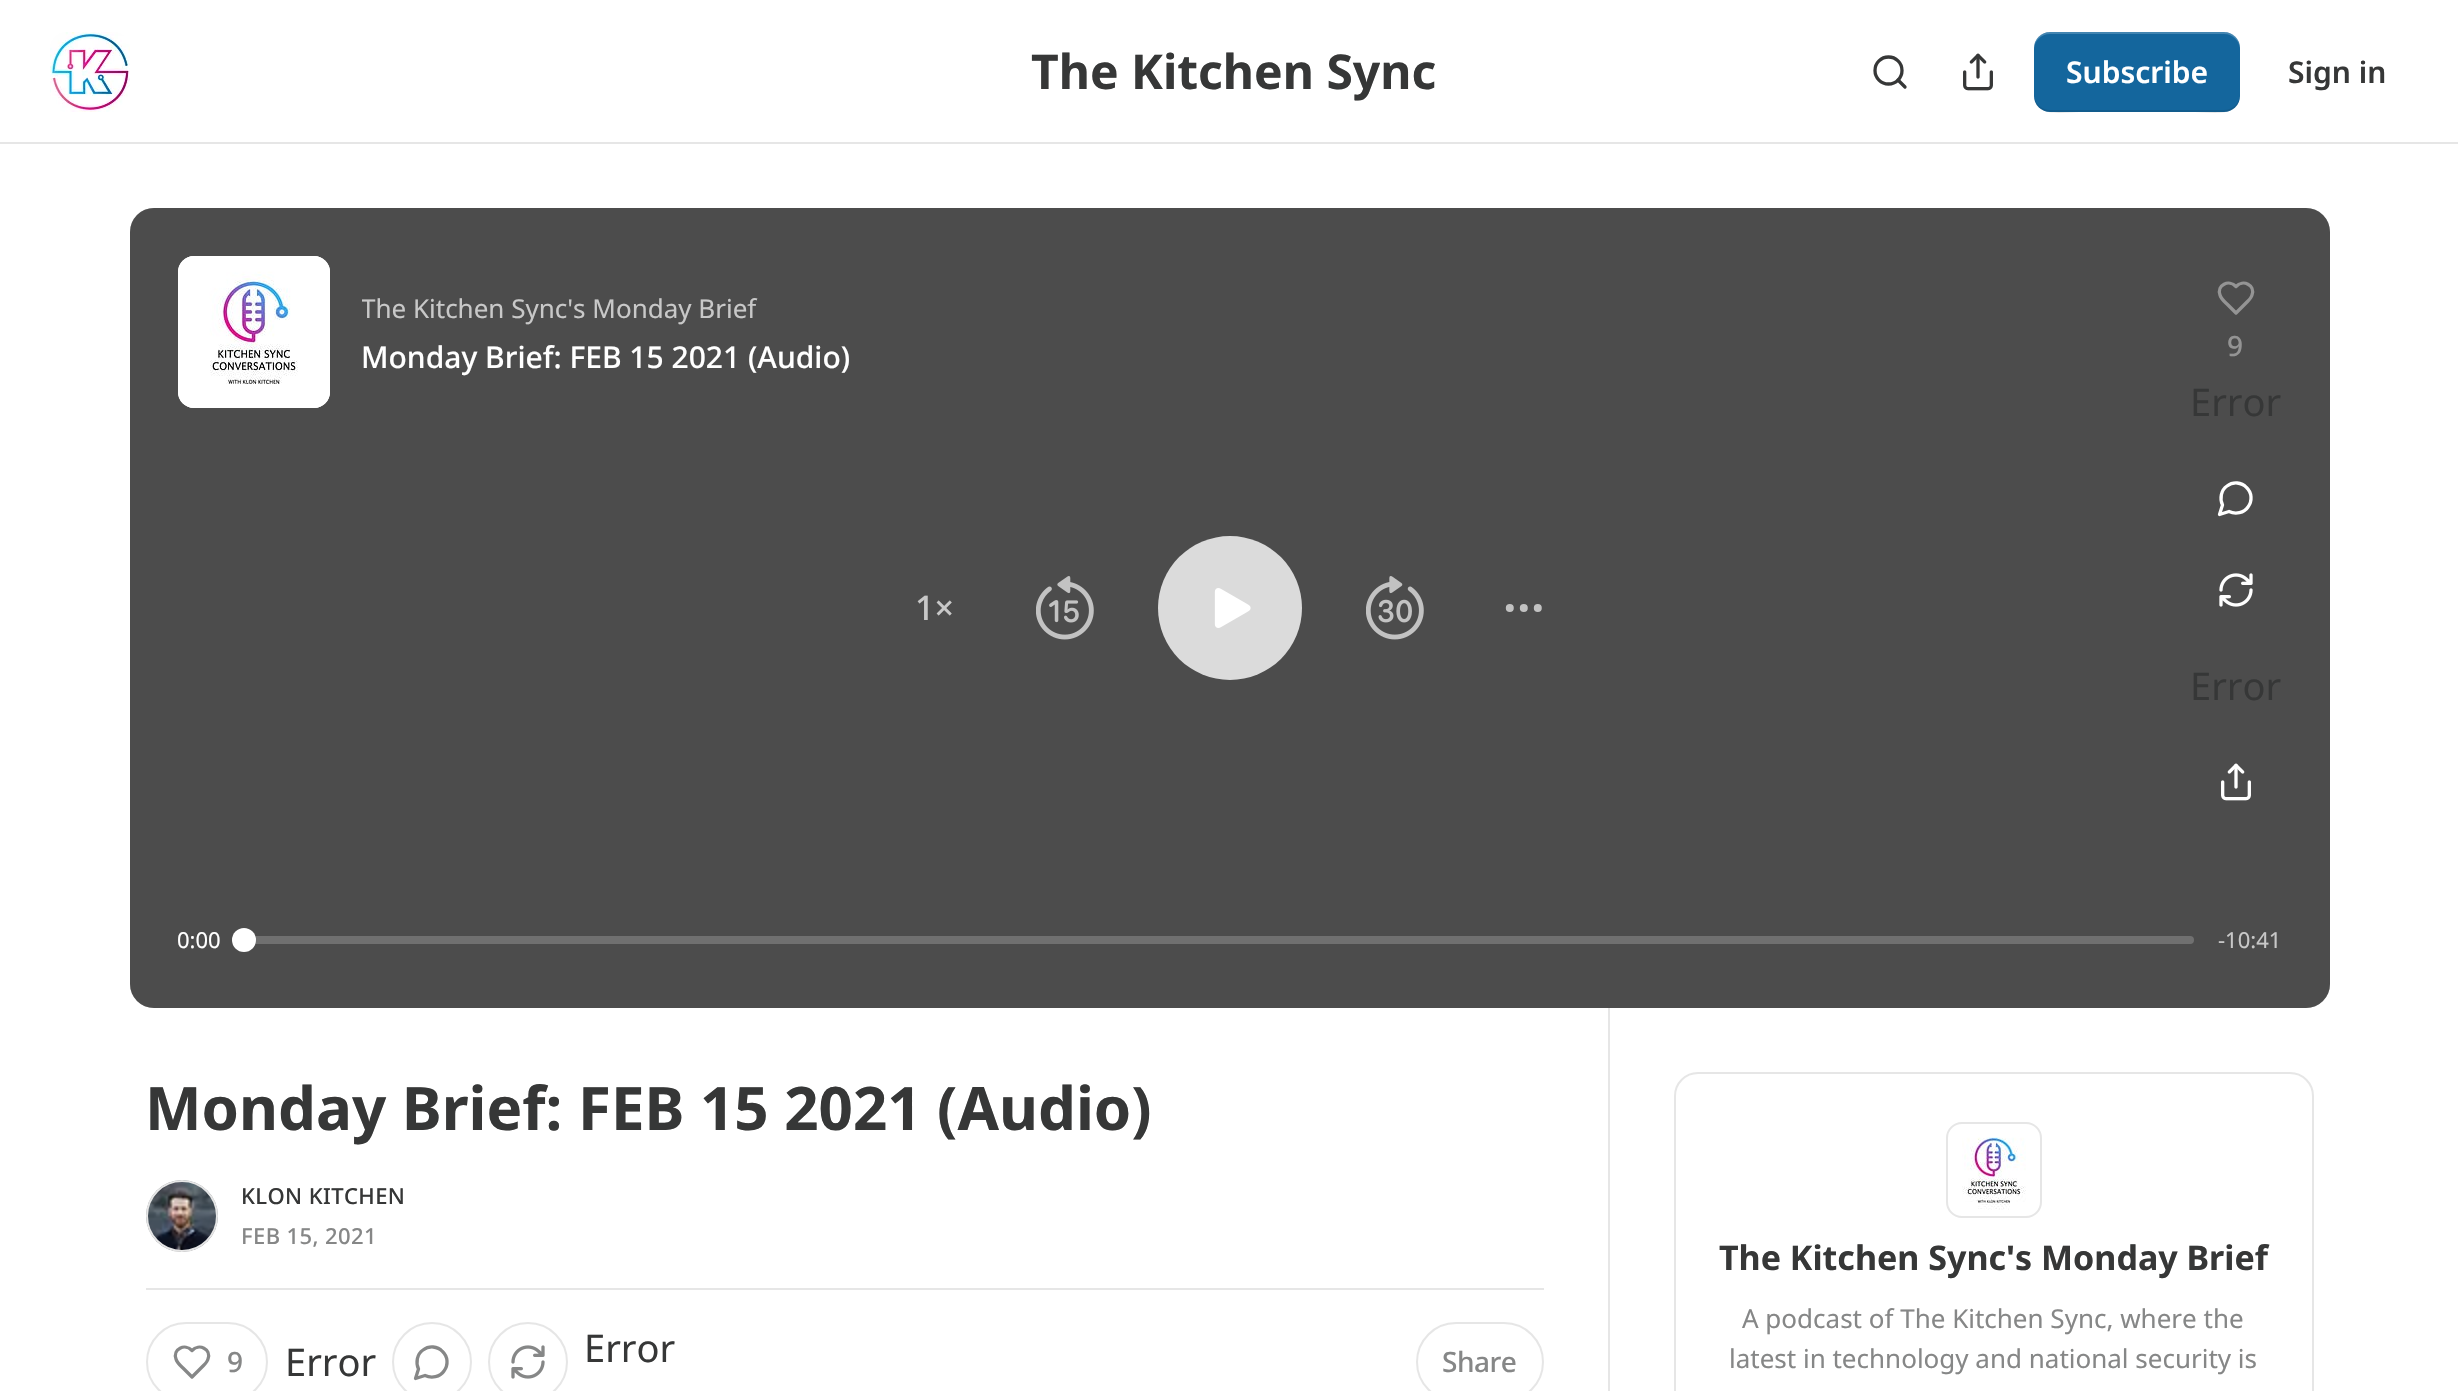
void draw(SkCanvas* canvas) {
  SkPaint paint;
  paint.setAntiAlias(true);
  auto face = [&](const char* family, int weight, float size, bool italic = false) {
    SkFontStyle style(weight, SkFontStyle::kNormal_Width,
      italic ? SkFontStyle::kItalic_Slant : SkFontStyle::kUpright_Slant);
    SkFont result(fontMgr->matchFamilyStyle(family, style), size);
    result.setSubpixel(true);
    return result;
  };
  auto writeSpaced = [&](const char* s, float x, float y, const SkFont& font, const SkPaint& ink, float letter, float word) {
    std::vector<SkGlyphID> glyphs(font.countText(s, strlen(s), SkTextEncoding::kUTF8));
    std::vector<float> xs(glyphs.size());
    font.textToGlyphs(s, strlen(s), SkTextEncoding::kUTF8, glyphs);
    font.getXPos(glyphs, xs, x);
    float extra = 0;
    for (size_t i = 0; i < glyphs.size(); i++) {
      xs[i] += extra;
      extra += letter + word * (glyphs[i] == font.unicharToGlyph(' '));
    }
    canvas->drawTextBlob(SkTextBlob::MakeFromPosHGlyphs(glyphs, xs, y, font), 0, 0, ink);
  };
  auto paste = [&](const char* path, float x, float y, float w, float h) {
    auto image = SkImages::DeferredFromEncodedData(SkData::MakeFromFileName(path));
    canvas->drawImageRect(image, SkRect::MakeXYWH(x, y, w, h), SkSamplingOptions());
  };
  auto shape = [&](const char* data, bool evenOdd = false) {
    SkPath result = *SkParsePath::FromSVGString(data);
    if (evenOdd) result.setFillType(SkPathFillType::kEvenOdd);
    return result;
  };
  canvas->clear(0xffffffff);
  paint.setColor(0xffe6e6e6);
  canvas->drawRect(SkRect::MakeXYWH(0, 142, 2458, 2), paint);
  paste("img/1.png", 50, 32, 80, 80);
  paint.setStroke(true);
  paint.setStrokeWidth(3.3f);
  paint.setColor(0xff363737);
  canvas->drawCircle(1888.5f, 70.5f, 13.5f, paint);
  paint.setStrokeCap(SkPaint::kRound_Cap);
  paint.setStrokeJoin(SkPaint::kRound_Join);
  canvas->drawPath(shape("M1905 87L1898 80"), paint);
  paste("img/2.png", 1963, 53, 30, 38);
  paint.setStroke(false);
  paint.setColor(0xff14669d);
  canvas->drawRoundRect(SkRect::MakeXYWH(2034, 32, 206, 80), 16, 16, paint);
  paint.setColor(0x1a000000);
  canvas->drawPath(shape("M2034 94C2034 119 2063 112 2079 112H2195C2211 112 2240 119 2240 94C2240 103 2233 110 2224 110H2050C2041 110 2034 103 2034 94Z"), paint);
  paint.setColor(0x33ffffff);
  canvas->drawPath(shape("M2050 34H2224C2233 34 2240 41 2240 50C2240 25 2211 32 2195 32H2079C2063 32 2034 25 2034 50C2034 41 2041 34 2050 34Z"), paint);
  paint.setColor(0xffa8a8a8);
  canvas->drawRoundRect(SkRect::MakeXYWH(130, 208, 2200, 800), 24, 24, paint);
  paint.setColor(0xbf2e2e2e);
  canvas->drawRoundRect(SkRect::MakeXYWH(130, 208, 2200, 800), 24, 24, paint);
  paint.setColor(0xffffffff);
  canvas->drawRoundRect(SkRect::MakeXYWH(178, 256, 152, 152), 16, 16, paint);
  paste("img/3.png", 178, 256, 152, 152);
  paint.setStroke(true);
  paint.setStrokeWidth(2);
  paint.setStrokeCap(SkPaint::kButt_Cap);
  paint.setStrokeJoin(SkPaint::kMiter_Join);
  paint.setColor(0x1affffff);
  canvas->drawRoundRect(SkRect::MakeXYWH(179, 257, 150, 150), 15, 15, paint);
  paint.setStrokeWidth(3.3f);
  paint.setStrokeCap(SkPaint::kRound_Cap);
  paint.setStrokeJoin(SkPaint::kRound_Join);
  paint.setColor(0xff949494);
  canvas->drawPath(shape("M2247.5 301.5C2249.5 299.5 2251.5 297.5 2252 295C2255.5 285 2243 279 2236 286.5C2229 279 2216.5 285 2220 295C2221 299 2225 302 2228 305L2236 313Z"), paint);
  paint.setColor(0xffffffff);
  canvas->drawPath(shape("M2229 511.5C2235.5 514.5 2244 513 2248 507C2252.5 501 2252 492.5 2246.5 487.5C2241.5 482 2233 481.5 2227 486C2221 490 2219.5 498.5 2222.5 505L2219.5 514.5Z"), paint);
  paste("img/4.png", 2219, 573, 34, 34);
  paste("img/5.png", 2221, 763, 30, 38);
  paste("img/6.png", 1036, 576, 58, 64);
  paint.setStroke(false);
  paint.setColor(0xffdbdbdb);
  canvas->drawCircle(1230, 608, 72, paint);
  paste("img/7.png", 1214, 588, 37, 40);
  paste("img/8.png", 1366, 576, 58, 64);
  paint.setStroke(true);
  paint.setStrokeWidth(4);
  paint.setStrokeCap(SkPaint::kButt_Cap);
  paint.setStrokeJoin(SkPaint::kMiter_Join);
  paint.setColor(0xffc2c2c2);
  canvas->drawCircle(1523.8f, 608, 2, paint);
  canvas->drawCircle(1537.8f, 608, 2, paint);
  canvas->drawCircle(1509.8f, 608, 2, paint);
  paint.setStroke(false);
  paint.setColor(0xff707070);
  canvas->drawRoundRect(SkRect::MakeXYWH(244, 936, 1950, 8), 4, 4, paint);
  paint.setColor(0xffffffff);
  canvas->drawCircle(244, 940, 12, paint);
  paint.setStroke(true);
  paint.setStrokeWidth(2);
  paint.setColor(0xffe6e6e6);
  canvas->drawCircle(182, 1216, 35, paint);
  paste("img/9.png", 146, 1180, 72, 72);
  canvas->drawCircle(182, 1216, 35, paint);
  paint.setStroke(false);
  canvas->drawRect(SkRect::MakeXYWH(146, 1288, 1398, 2), paint);
  paint.setStroke(true);
  canvas->drawRoundRect(SkRect::MakeXYWH(147, 1323, 120, 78), 39, 39, paint);
  paint.setStrokeWidth(3.3f);
  paint.setStrokeCap(SkPaint::kRound_Cap);
  paint.setStrokeJoin(SkPaint::kRound_Join);
  paint.setColor(0xff868787);
  canvas->drawPath(shape("M203.5 1365.5C205.5 1363.5 207.5 1361.5 208 1359C211.5 1349 199 1343 192 1350.5C185 1343 172.5 1349 176 1359C177 1363 181 1366 184 1369L192 1377Z"), paint);
  paint.setStrokeWidth(2);
  paint.setStrokeCap(SkPaint::kButt_Cap);
  paint.setStrokeJoin(SkPaint::kMiter_Join);
  paint.setColor(0xffe6e6e6);
  canvas->drawCircle(432, 1362, 39, paint);
  paint.setStrokeWidth(3.3f);
  paint.setStrokeCap(SkPaint::kRound_Cap);
  paint.setStrokeJoin(SkPaint::kRound_Join);
  paint.setColor(0xff868787);
  canvas->drawPath(shape("M425 1375.5C431.5 1378.5 440 1377 444 1371C448.5 1365 448 1356.5 442.5 1351.5C437.5 1346 429 1345.5 423 1350C417 1354 415.5 1362.5 418.5 1369L415.5 1378.5Z"), paint);
  paint.setStrokeWidth(2);
  paint.setStrokeCap(SkPaint::kButt_Cap);
  paint.setStrokeJoin(SkPaint::kMiter_Join);
  paint.setColor(0xffe6e6e6);
  canvas->drawCircle(528, 1362, 39, paint);
  paste("img/10.png", 511, 1345, 34, 34);
  canvas->drawRoundRect(SkRect::MakeXYWH(1417, 1323, 126, 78), 39, 39, paint);
  paint.setStroke(false);
  canvas->drawRect(SkRect::MakeXYWH(1608, 1008, 2, 383), paint);
  paint.setStroke(true);
  canvas->drawRoundRect(SkRect::MakeXYWH(1675, 1073, 638, 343), 23, 23, paint);
  paste("img/11.png", 1962, 1137, 64, 73);
  canvas->drawRoundRect(SkRect::MakeXYWH(1947, 1123, 94, 94), 15, 15, paint);
  auto f0 = face("Noto Sans", 700, 48);
  paint.setStroke(false);
  paint.setColor(0xff363737);
  canvas->drawString("The Kitchen Sync", 1031, 89, f0, paint);
  auto f1 = face("Noto Sans", 600, 30);
  paint.setColor(0xffffffff);
  canvas->drawString("Subscribe", 2066, 83, f1, paint);
  paint.setColor(0xff363737);
  canvas->drawString("Sign in", 2288, 83, f1, paint);
  canvas->save();
  canvas->clipRect(SkRect::MakeXYWH(362, 288, 1732, 40));
  auto f2 = face("Noto Sans", 400, 26);
  paint.setColor(0xffc8c8c8);
  canvas->drawString("The Kitchen Sync's Monday Brief", 361, 318, f2, paint);
  canvas->restore();
  auto f3 = face("Noto Sans", 500, 30);
  paint.setColor(0xffffffff);
  canvas->drawString("Monday Brief: FEB 15 2021 (Audio)", 361, 368, f3, paint);
  auto f4 = face("Noto Sans", 500, 28);
  paint.setColor(0xff949494);
  canvas->drawString("9", 2227, 356, f4, paint);
  auto f5 = face("Noto Sans", 400, 38);
  paint.setColor(0xff363737);
  canvas->drawString("Error", 2190, 416, f5, paint);
  canvas->drawString("Error", 2190, 700, f5, paint);
  auto f6 = face("Noto Sans", 500, 34);
  paint.setColor(0xffc8c8c8);
  canvas->drawString("1×", 915, 620, f6, paint);
  auto f7 = face("Noto Sans", 400, 22);
  paint.setColor(0xffffffff);
  canvas->drawString("0:00", 177, 948, f7, paint);
  paint.setColor(0xffc8c8c8);
  canvas->drawString("-10:41", 2218, 948, f7, paint);
  auto f8 = face("Noto Sans", 700, 60);
  paint.setColor(0xff363737);
  canvas->drawString("Monday Brief: FEB 15 2021 (Audio)", 145, 1130, f8, paint);
  auto f9 = face("Noto Sans", 500, 22);
  writeSpaced("KLON KITCHEN", 241, 1204, f9, paint, 0.4f, 0);
  paint.setColor(0xff868787);
  writeSpaced("FEB 15, 2021", 241, 1244, f9, paint, 0.4f, 0);
  writeSpaced("9", 227, 1372, f4, paint, -0.5f, 0);
  paint.setColor(0xff363737);
  canvas->drawString("Error", 285, 1376, f5, paint);
  canvas->drawString("Error", 584, 1362, f5, paint);
  paint.setColor(0xff868787);
  writeSpaced("Share", 1442, 1372, f4, paint, -0.5f, 0);
  auto f10 = face("Noto Sans", 700, 34);
  paint.setColor(0xff363737);
  canvas->drawString("The Kitchen Sync's Monday Brief", 1719, 1270, f10, paint);
  paint.setColor(0xff868787);
  canvas->drawString("A podcast of The Kitchen Sync, where the", 1742, 1328, f2, paint);
  canvas->drawString("latest in technology and national security is", 1729, 1368, f2, paint);
}
